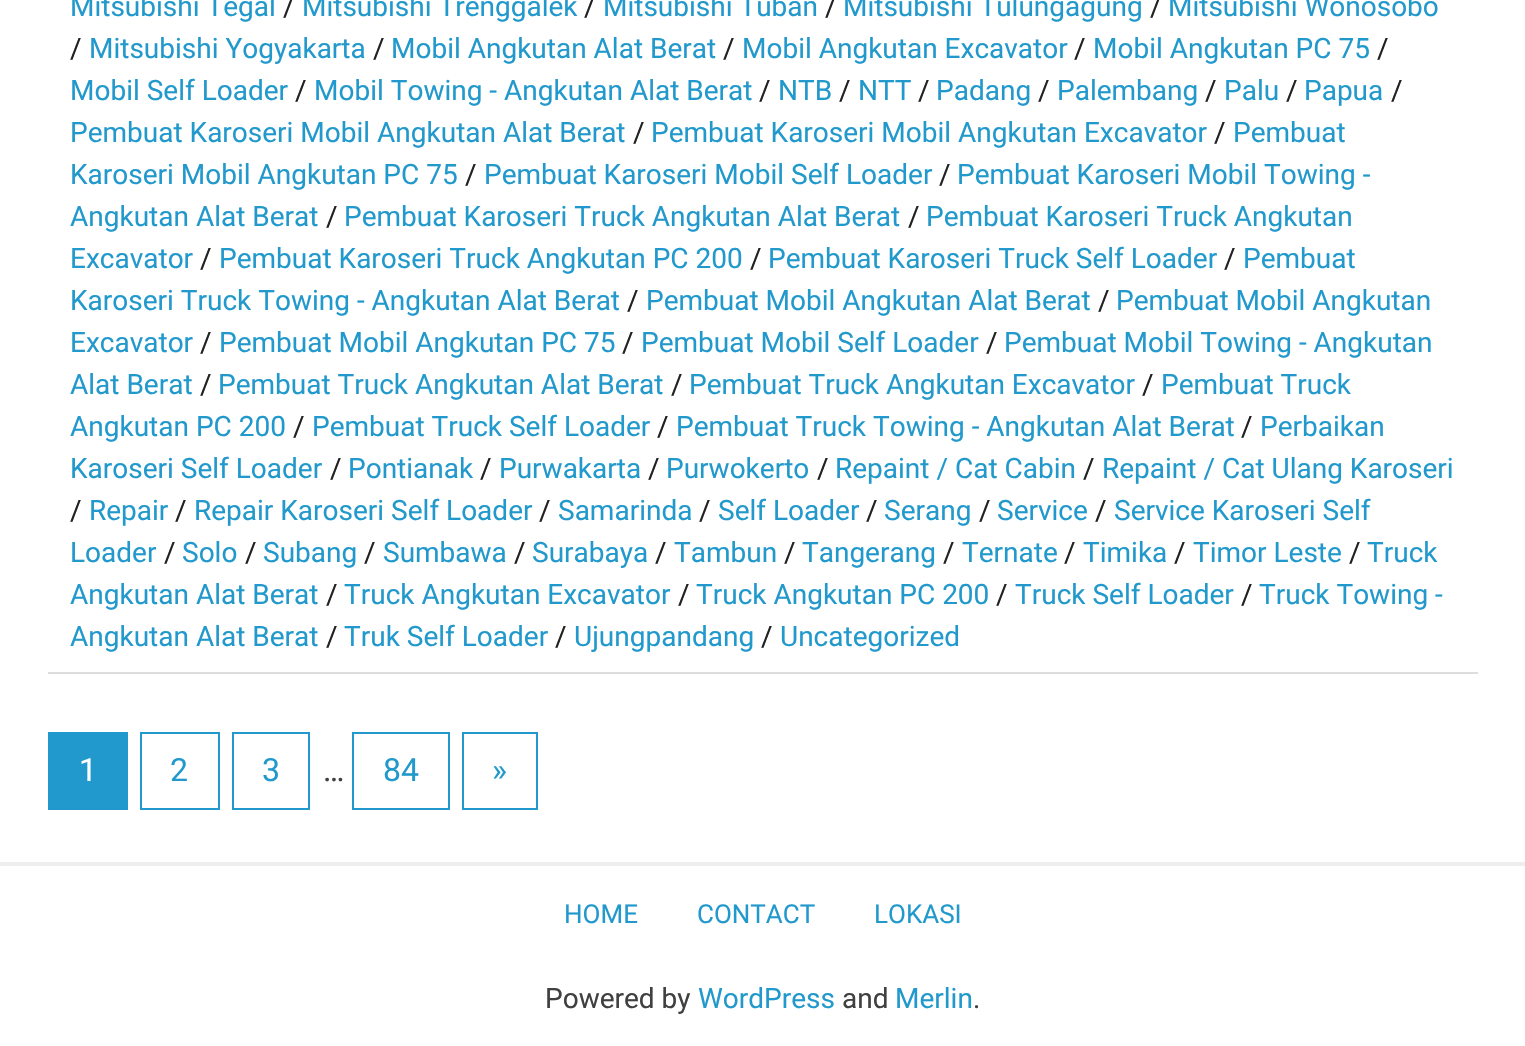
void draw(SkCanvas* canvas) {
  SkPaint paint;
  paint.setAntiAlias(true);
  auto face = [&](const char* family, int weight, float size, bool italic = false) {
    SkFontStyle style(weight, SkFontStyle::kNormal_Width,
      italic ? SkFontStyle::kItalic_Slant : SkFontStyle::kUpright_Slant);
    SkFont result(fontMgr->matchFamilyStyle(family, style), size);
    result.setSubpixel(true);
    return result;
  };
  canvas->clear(0xffffffff);
  paint.setColor(0xffdddddd);
  canvas->drawRect(SkRect::MakeXYWH(48, 672, 1430, 2), paint);
  paint.setColor(0xff2299cc);
  canvas->drawRect(SkRect::MakeXYWH(48, 732, 80, 78), paint);
  paint.setStroke(true);
  paint.setStrokeWidth(2);
  canvas->drawRect(SkRect::MakeXYWH(141, 733, 78, 76), paint);
  canvas->drawRect(SkRect::MakeXYWH(233, 733, 76, 76), paint);
  canvas->drawRect(SkRect::MakeXYWH(353, 733, 96, 76), paint);
  canvas->drawRect(SkRect::MakeXYWH(463, 733, 74, 76), paint);
  paint.setStroke(false);
  paint.setColor(0xffeeeeee);
  canvas->drawRect(SkRect::MakeXYWH(0, 862, 1525, 4), paint);
  auto f0 = face("Roboto", 400, 28);
  paint.setColor(0xff2299cc);
  canvas->drawString("Mitsubishi Tegal", 70, 16, f0, paint);
  paint.setColor(0xff222222);
  canvas->drawString("/", 283, 16, f0, paint);
  paint.setColor(0xff2299cc);
  canvas->drawString("Mitsubishi Trenggalek", 302, 16, f0, paint);
  paint.setColor(0xff222222);
  canvas->drawString("/", 584, 16, f0, paint);
  paint.setColor(0xff2299cc);
  canvas->drawString("Mitsubishi Tuban", 603, 16, f0, paint);
  paint.setColor(0xff222222);
  canvas->drawString("/", 825, 16, f0, paint);
  paint.setColor(0xff2299cc);
  canvas->drawString("Mitsubishi Tulungagung", 843, 16, f0, paint);
  paint.setColor(0xff222222);
  canvas->drawString("/", 1150, 16, f0, paint);
  paint.setColor(0xff2299cc);
  canvas->drawString("Mitsubishi Wonosobo", 1168, 16, f0, paint);
  paint.setColor(0xff222222);
  canvas->drawString("/", 70, 58, f0, paint);
  paint.setColor(0xff2299cc);
  canvas->drawString("Mitsubishi Yogyakarta", 89, 58, f0, paint);
  paint.setColor(0xff222222);
  canvas->drawString("/", 373, 58, f0, paint);
  paint.setColor(0xff2299cc);
  canvas->drawString("Mobil Angkutan Alat Berat", 391, 58, f0, paint);
  paint.setColor(0xff222222);
  canvas->drawString("/", 723, 58, f0, paint);
  paint.setColor(0xff2299cc);
  canvas->drawString("Mobil Angkutan Excavator", 742, 58, f0, paint);
  paint.setColor(0xff222222);
  canvas->drawString("/", 1074, 58, f0, paint);
  paint.setColor(0xff2299cc);
  canvas->drawString("Mobil Angkutan PC 75", 1093, 58, f0, paint);
  paint.setColor(0xff222222);
  canvas->drawString("/", 1377, 58, f0, paint);
  paint.setColor(0xff2299cc);
  canvas->drawString("Mobil Self Loader", 70, 100, f0, paint);
  paint.setColor(0xff222222);
  canvas->drawString("/", 295, 100, f0, paint);
  paint.setColor(0xff2299cc);
  canvas->drawString("Mobil Towing - Angkutan Alat Berat", 314, 100, f0, paint);
  paint.setColor(0xff222222);
  canvas->drawString("/", 759, 100, f0, paint);
  paint.setColor(0xff2299cc);
  canvas->drawString("NTB", 778, 100, f0, paint);
  paint.setColor(0xff222222);
  canvas->drawString("/", 839, 100, f0, paint);
  paint.setColor(0xff2299cc);
  canvas->drawString("NTT", 858, 100, f0, paint);
  paint.setColor(0xff222222);
  canvas->drawString("/", 918, 100, f0, paint);
  paint.setColor(0xff2299cc);
  canvas->drawString("Padang", 936, 100, f0, paint);
  paint.setColor(0xff222222);
  canvas->drawString("/", 1038, 100, f0, paint);
  paint.setColor(0xff2299cc);
  canvas->drawString("Palembang", 1057, 100, f0, paint);
  paint.setColor(0xff222222);
  canvas->drawString("/", 1205, 100, f0, paint);
  paint.setColor(0xff2299cc);
  canvas->drawString("Palu", 1224, 100, f0, paint);
  paint.setColor(0xff222222);
  canvas->drawString("/", 1286, 100, f0, paint);
  paint.setColor(0xff2299cc);
  canvas->drawString("Papua", 1304, 100, f0, paint);
  paint.setColor(0xff222222);
  canvas->drawString("/", 1391, 100, f0, paint);
  paint.setColor(0xff2299cc);
  canvas->drawString("Pembuat Karoseri Mobil Angkutan Alat Berat", 70, 142, f0, paint);
  paint.setColor(0xff222222);
  canvas->drawString("/", 633, 142, f0, paint);
  paint.setColor(0xff2299cc);
  canvas->drawString("Pembuat Karoseri Mobil Angkutan Excavator", 651, 142, f0, paint);
  paint.setColor(0xff222222);
  canvas->drawString("/", 1214, 142, f0, paint);
  paint.setColor(0xff2299cc);
  canvas->drawString("Pembuat", 1233, 142, f0, paint);
  canvas->drawString("Karoseri Mobil Angkutan PC 75", 70, 184, f0, paint);
  paint.setColor(0xff222222);
  canvas->drawString("/", 465, 184, f0, paint);
  paint.setColor(0xff2299cc);
  canvas->drawString("Pembuat Karoseri Mobil Self Loader", 484, 184, f0, paint);
  paint.setColor(0xff222222);
  canvas->drawString("/", 939, 184, f0, paint);
  paint.setColor(0xff2299cc);
  canvas->drawString("Pembuat Karoseri Mobil Towing -", 957, 184, f0, paint);
  canvas->drawString("Angkutan Alat Berat", 70, 226, f0, paint);
  paint.setColor(0xff222222);
  canvas->drawString("/", 326, 226, f0, paint);
  paint.setColor(0xff2299cc);
  canvas->drawString("Pembuat Karoseri Truck Angkutan Alat Berat", 344, 226, f0, paint);
  paint.setColor(0xff222222);
  canvas->drawString("/", 908, 226, f0, paint);
  paint.setColor(0xff2299cc);
  canvas->drawString("Pembuat Karoseri Truck Angkutan", 926, 226, f0, paint);
  canvas->drawString("Excavator", 70, 268, f0, paint);
  paint.setColor(0xff222222);
  canvas->drawString("/", 200, 268, f0, paint);
  paint.setColor(0xff2299cc);
  canvas->drawString("Pembuat Karoseri Truck Angkutan PC 200", 219, 268, f0, paint);
  paint.setColor(0xff222222);
  canvas->drawString("/", 750, 268, f0, paint);
  paint.setColor(0xff2299cc);
  canvas->drawString("Pembuat Karoseri Truck Self Loader", 768, 268, f0, paint);
  paint.setColor(0xff222222);
  canvas->drawString("/", 1224, 268, f0, paint);
  paint.setColor(0xff2299cc);
  canvas->drawString("Pembuat", 1243, 268, f0, paint);
  canvas->drawString("Karoseri Truck Towing - Angkutan Alat Berat", 70, 310, f0, paint);
  paint.setColor(0xff222222);
  canvas->drawString("/", 627, 310, f0, paint);
  paint.setColor(0xff2299cc);
  canvas->drawString("Pembuat Mobil Angkutan Alat Berat", 646, 310, f0, paint);
  paint.setColor(0xff222222);
  canvas->drawString("/", 1098, 310, f0, paint);
  paint.setColor(0xff2299cc);
  canvas->drawString("Pembuat Mobil Angkutan", 1116, 310, f0, paint);
  canvas->drawString("Excavator", 70, 352, f0, paint);
  paint.setColor(0xff222222);
  canvas->drawString("/", 200, 352, f0, paint);
  paint.setColor(0xff2299cc);
  canvas->drawString("Pembuat Mobil Angkutan PC 75", 219, 352, f0, paint);
  paint.setColor(0xff222222);
  canvas->drawString("/", 622, 352, f0, paint);
  paint.setColor(0xff2299cc);
  canvas->drawString("Pembuat Mobil Self Loader", 641, 352, f0, paint);
  paint.setColor(0xff222222);
  canvas->drawString("/", 986, 352, f0, paint);
  paint.setColor(0xff2299cc);
  canvas->drawString("Pembuat Mobil Towing - Angkutan", 1004, 352, f0, paint);
  canvas->drawString("Alat Berat", 70, 394, f0, paint);
  paint.setColor(0xff222222);
  canvas->drawString("/", 200, 394, f0, paint);
  paint.setColor(0xff2299cc);
  canvas->drawString("Pembuat Truck Angkutan Alat Berat", 218, 394, f0, paint);
  paint.setColor(0xff222222);
  canvas->drawString("/", 671, 394, f0, paint);
  paint.setColor(0xff2299cc);
  canvas->drawString("Pembuat Truck Angkutan Excavator", 689, 394, f0, paint);
  paint.setColor(0xff222222);
  canvas->drawString("/", 1142, 394, f0, paint);
  paint.setColor(0xff2299cc);
  canvas->drawString("Pembuat Truck", 1161, 394, f0, paint);
  canvas->drawString("Angkutan PC 200", 70, 436, f0, paint);
  paint.setColor(0xff222222);
  canvas->drawString("/", 293, 436, f0, paint);
  paint.setColor(0xff2299cc);
  canvas->drawString("Pembuat Truck Self Loader", 312, 436, f0, paint);
  paint.setColor(0xff222222);
  canvas->drawString("/", 657, 436, f0, paint);
  paint.setColor(0xff2299cc);
  canvas->drawString("Pembuat Truck Towing - Angkutan Alat Berat", 676, 436, f0, paint);
  paint.setColor(0xff222222);
  canvas->drawString("/", 1241, 436, f0, paint);
  paint.setColor(0xff2299cc);
  canvas->drawString("Perbaikan", 1260, 436, f0, paint);
  canvas->drawString("Karoseri Self Loader", 70, 478, f0, paint);
  paint.setColor(0xff222222);
  canvas->drawString("/", 330, 478, f0, paint);
  paint.setColor(0xff2299cc);
  canvas->drawString("Pontianak", 348, 478, f0, paint);
  paint.setColor(0xff222222);
  canvas->drawString("/", 480, 478, f0, paint);
  paint.setColor(0xff2299cc);
  canvas->drawString("Purwakarta", 499, 478, f0, paint);
  paint.setColor(0xff222222);
  canvas->drawString("/", 648, 478, f0, paint);
  paint.setColor(0xff2299cc);
  canvas->drawString("Purwokerto", 666, 478, f0, paint);
  paint.setColor(0xff222222);
  canvas->drawString("/", 817, 478, f0, paint);
  paint.setColor(0xff2299cc);
  canvas->drawString("Repaint / Cat Cabin", 835, 478, f0, paint);
  paint.setColor(0xff222222);
  canvas->drawString("/", 1083, 478, f0, paint);
  paint.setColor(0xff2299cc);
  canvas->drawString("Repaint / Cat Ulang Karoseri", 1102, 478, f0, paint);
  paint.setColor(0xff222222);
  canvas->drawString("/", 70, 520, f0, paint);
  paint.setColor(0xff2299cc);
  canvas->drawString("Repair", 89, 520, f0, paint);
  paint.setColor(0xff222222);
  canvas->drawString("/", 175, 520, f0, paint);
  paint.setColor(0xff2299cc);
  canvas->drawString("Repair Karoseri Self Loader", 194, 520, f0, paint);
  paint.setColor(0xff222222);
  canvas->drawString("/", 539, 520, f0, paint);
  paint.setColor(0xff2299cc);
  canvas->drawString("Samarinda", 558, 520, f0, paint);
  paint.setColor(0xff222222);
  canvas->drawString("/", 699, 520, f0, paint);
  paint.setColor(0xff2299cc);
  canvas->drawString("Self Loader", 718, 520, f0, paint);
  paint.setColor(0xff222222);
  canvas->drawString("/", 866, 520, f0, paint);
  paint.setColor(0xff2299cc);
  canvas->drawString("Serang", 884, 520, f0, paint);
  paint.setColor(0xff222222);
  canvas->drawString("/", 979, 520, f0, paint);
  paint.setColor(0xff2299cc);
  canvas->drawString("Service", 997, 520, f0, paint);
  paint.setColor(0xff222222);
  canvas->drawString("/", 1095, 520, f0, paint);
  paint.setColor(0xff2299cc);
  canvas->drawString("Service Karoseri Self", 1114, 520, f0, paint);
  canvas->drawString("Loader", 70, 562, f0, paint);
  paint.setColor(0xff222222);
  canvas->drawString("/", 164, 562, f0, paint);
  paint.setColor(0xff2299cc);
  canvas->drawString("Solo", 182, 562, f0, paint);
  paint.setColor(0xff222222);
  canvas->drawString("/", 245, 562, f0, paint);
  paint.setColor(0xff2299cc);
  canvas->drawString("Subang", 263, 562, f0, paint);
  paint.setColor(0xff222222);
  canvas->drawString("/", 364, 562, f0, paint);
  paint.setColor(0xff2299cc);
  canvas->drawString("Sumbawa", 383, 562, f0, paint);
  paint.setColor(0xff222222);
  canvas->drawString("/", 514, 562, f0, paint);
  paint.setColor(0xff2299cc);
  canvas->drawString("Surabaya", 532, 562, f0, paint);
  paint.setColor(0xff222222);
  canvas->drawString("/", 655, 562, f0, paint);
  paint.setColor(0xff2299cc);
  canvas->drawString("Tambun", 674, 562, f0, paint);
  paint.setColor(0xff222222);
  canvas->drawString("/", 784, 562, f0, paint);
  paint.setColor(0xff2299cc);
  canvas->drawString("Tangerang", 802, 562, f0, paint);
  paint.setColor(0xff222222);
  canvas->drawString("/", 943, 562, f0, paint);
  paint.setColor(0xff2299cc);
  canvas->drawString("Ternate", 962, 562, f0, paint);
  paint.setColor(0xff222222);
  canvas->drawString("/", 1064, 562, f0, paint);
  paint.setColor(0xff2299cc);
  canvas->drawString("Timika", 1083, 562, f0, paint);
  paint.setColor(0xff222222);
  canvas->drawString("/", 1174, 562, f0, paint);
  paint.setColor(0xff2299cc);
  canvas->drawString("Timor Leste", 1193, 562, f0, paint);
  paint.setColor(0xff222222);
  canvas->drawString("/", 1349, 562, f0, paint);
  paint.setColor(0xff2299cc);
  canvas->drawString("Truck", 1367, 562, f0, paint);
  canvas->drawString("Angkutan Alat Berat", 70, 604, f0, paint);
  paint.setColor(0xff222222);
  canvas->drawString("/", 326, 604, f0, paint);
  paint.setColor(0xff2299cc);
  canvas->drawString("Truck Angkutan Excavator", 344, 604, f0, paint);
  paint.setColor(0xff222222);
  canvas->drawString("/", 678, 604, f0, paint);
  paint.setColor(0xff2299cc);
  canvas->drawString("Truck Angkutan PC 200", 696, 604, f0, paint);
  paint.setColor(0xff222222);
  canvas->drawString("/", 996, 604, f0, paint);
  paint.setColor(0xff2299cc);
  canvas->drawString("Truck Self Loader", 1015, 604, f0, paint);
  paint.setColor(0xff222222);
  canvas->drawString("/", 1241, 604, f0, paint);
  paint.setColor(0xff2299cc);
  canvas->drawString("Truck Towing -", 1259, 604, f0, paint);
  canvas->drawString("Angkutan Alat Berat", 70, 646, f0, paint);
  paint.setColor(0xff222222);
  canvas->drawString("/", 326, 646, f0, paint);
  paint.setColor(0xff2299cc);
  canvas->drawString("Truk Self Loader", 344, 646, f0, paint);
  paint.setColor(0xff222222);
  canvas->drawString("/", 555, 646, f0, paint);
  paint.setColor(0xff2299cc);
  canvas->drawString("Ujungpandang", 574, 646, f0, paint);
  paint.setColor(0xff222222);
  canvas->drawString("/", 761, 646, f0, paint);
  paint.setColor(0xff2299cc);
  canvas->drawString("Uncategorized", 780, 646, f0, paint);
  auto f1 = face("Roboto", 400, 32);
  paint.setColor(0xffffffff);
  canvas->drawString("1", 79, 781, f1, paint);
  paint.setColor(0xff2299cc);
  {
    const struct { const char* s; float x, y; } items[] = {
      {"2", 170, 781},
      {"3", 262, 781},
      {"84", 383, 781},
      {"»", 492, 781},
    };
    for (auto [s, x, y] : items) {
      canvas->drawString(s, x, y, f1, paint);
    }
  }
  paint.setColor(0xff404040);
  canvas->drawString("…", 323, 781, f1, paint);
  auto f2 = face("Roboto", 400, 26);
  paint.setColor(0xff2299cc);
  {
    const struct { const char* s; float x, y; } items[] = {
      {"HOME", 564, 923},
      {"CONTACT", 697, 923},
      {"LOKASI", 874, 923},
    };
    for (auto [s, x, y] : items) {
      canvas->drawString(s, x, y, f2, paint);
    }
  }
  paint.setColor(0xff404040);
  canvas->drawString("Powered by", 545, 1008, f0, paint);
  paint.setColor(0xff2299cc);
  canvas->drawString("WordPress", 698, 1008, f0, paint);
  paint.setColor(0xff404040);
  canvas->drawString("and", 842, 1008, f0, paint);
  paint.setColor(0xff2299cc);
  canvas->drawString("Merlin", 895, 1008, f0, paint);
  paint.setColor(0xff404040);
  canvas->drawString(".", 973, 1008, f0, paint);
}
